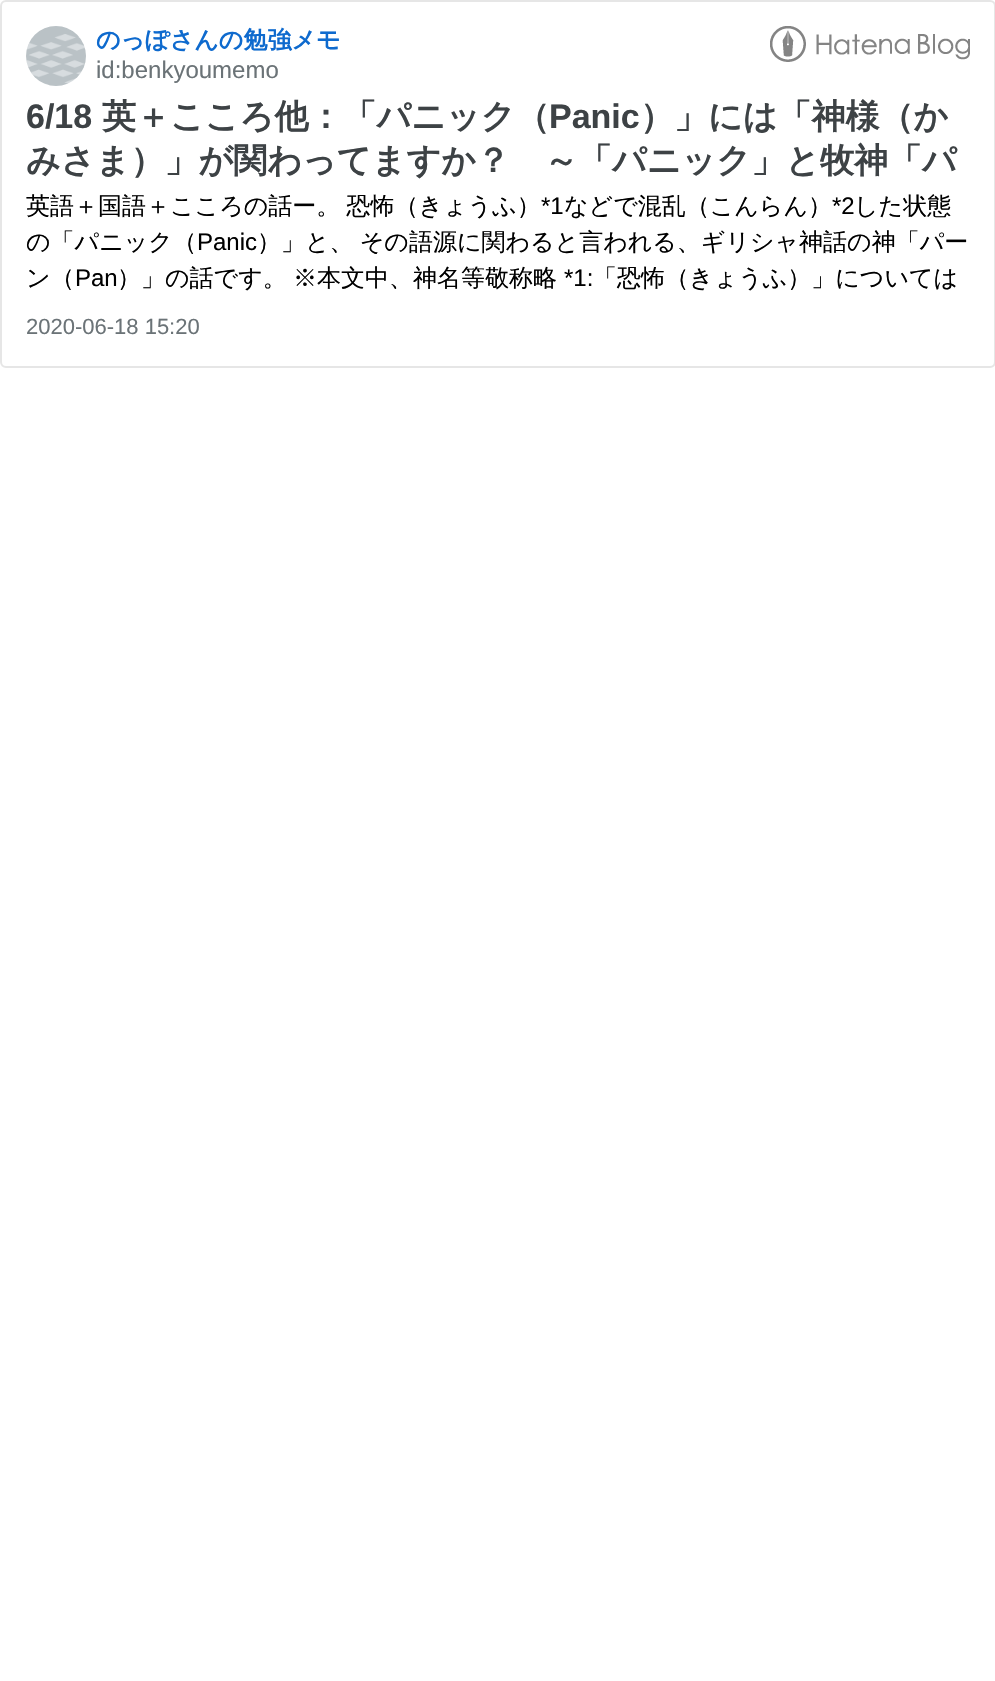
void draw(SkCanvas* canvas) {
  SkPaint paint;
  paint.setAntiAlias(true);
  auto face = [&](const char* family, int weight, float size, bool italic = false) {
    SkFontStyle style(weight, SkFontStyle::kNormal_Width,
      italic ? SkFontStyle::kItalic_Slant : SkFontStyle::kUpright_Slant);
    SkFont result(fontMgr->matchFamilyStyle(family, style), size);
    result.setSubpixel(true);
    return result;
  };
  auto writeSpaced = [&](const char* s, float x, float y, const SkFont& font, const SkPaint& ink, float letter, float word) {
    std::vector<SkGlyphID> glyphs(font.countText(s, strlen(s), SkTextEncoding::kUTF8));
    std::vector<float> xs(glyphs.size());
    font.textToGlyphs(s, strlen(s), SkTextEncoding::kUTF8, glyphs);
    font.getXPos(glyphs, xs, x);
    float extra = 0;
    for (size_t i = 0; i < glyphs.size(); i++) {
      xs[i] += extra;
      extra += letter + word * (glyphs[i] == font.unicharToGlyph(' '));
    }
    canvas->drawTextBlob(SkTextBlob::MakeFromPosHGlyphs(glyphs, xs, y, font), 0, 0, ink);
  };
  auto paste = [&](const char* path, float x, float y, float w, float h) {
    auto image = SkImages::DeferredFromEncodedData(SkData::MakeFromFileName(path));
    canvas->drawImageRect(image, SkRect::MakeXYWH(x, y, w, h), SkSamplingOptions());
  };
  canvas->clear(0xffffffff);
  paint.setStroke(true);
  paint.setStrokeWidth(2);
  paint.setColor(0xffe6e6e6);
  canvas->drawRoundRect(SkRect::MakeXYWH(1, 1, 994, 366), 5, 5, paint);
  paste("img/1.png", 26, 26, 60, 60);
  paste("img/2.png", 770, 26, 200, 36);
  auto f0 = face("WenQuanYi Zen Hei", 700, 24);
  paint.setStroke(false);
  paint.setColor(0xff0e6ace);
  canvas->drawString("のっぽさんの勉強メモ", 96, 48, f0, paint);
  auto f1 = face("Liberation Sans", 400, 24);
  paint.setColor(0xff6b7377);
  canvas->drawString("id:benkyoumemo", 96, 78, f1, paint);
  auto f2 = face("Liberation Sans", 700, 34);
  paint.setColor(0xff3d4245);
  canvas->drawString("6/18", 26, 128, f2, paint);
  auto f3 = face("WenQuanYi Zen Hei", 700, 34);
  canvas->drawString("英＋こころ他：「パニック（", 102, 128, f3, paint);
  canvas->drawString("Panic", 549, 128, f2, paint);
  canvas->drawString("）」には「神様（か", 640, 128, f3, paint);
  canvas->drawString("みさま）」が関わってますか？　～「パニック」と牧神「パ", 26, 172, f3, paint);
  auto f4 = face("WenQuanYi Zen Hei", 500, 24);
  paint.setColor(0xff000000);
  writeSpaced("英語＋国語＋こころの話ー。 恐怖（きょうふ）", 26, 214, f4, paint, 0, -1);
  canvas->drawString("*1", 541, 214, f1, paint);
  canvas->drawString("などで混乱（こんらん）", 564, 214, f4, paint);
  canvas->drawString("*2", 832, 214, f1, paint);
  canvas->drawString("した状態", 854, 214, f4, paint);
  canvas->drawString("の「パニック（", 26, 250, f4, paint);
  canvas->drawString("Panic", 197, 250, f1, paint);
  writeSpaced("）」と、 その語源に関わると言われる、ギリシャ神話の神「パー", 257, 250, f4, paint, 0, -1);
  canvas->drawString("ン（", 26, 286, f4, paint);
  canvas->drawString("Pan", 75, 286, f1, paint);
  writeSpaced("）」の話です。 ※本文中、神名等敬称略", 117, 286, f4, paint, 0, -1);
  canvas->drawString("*1:", 564, 286, f1, paint);
  canvas->drawString("「恐怖（きょうふ）」については", 593, 286, f4, paint);
  auto f5 = face("Liberation Sans", 400, 22);
  paint.setColor(0xff6b7377);
  canvas->drawString("2020-06-18 15:20", 26, 334, f5, paint);
}
